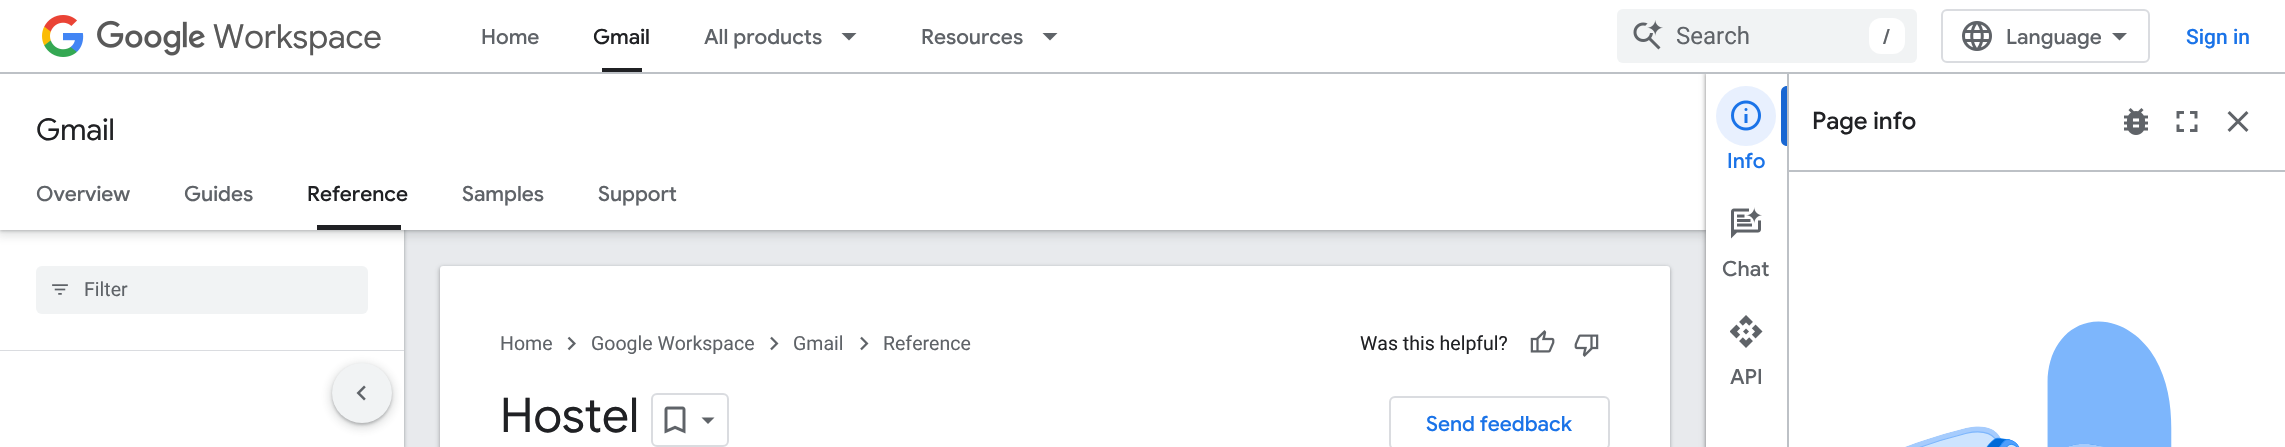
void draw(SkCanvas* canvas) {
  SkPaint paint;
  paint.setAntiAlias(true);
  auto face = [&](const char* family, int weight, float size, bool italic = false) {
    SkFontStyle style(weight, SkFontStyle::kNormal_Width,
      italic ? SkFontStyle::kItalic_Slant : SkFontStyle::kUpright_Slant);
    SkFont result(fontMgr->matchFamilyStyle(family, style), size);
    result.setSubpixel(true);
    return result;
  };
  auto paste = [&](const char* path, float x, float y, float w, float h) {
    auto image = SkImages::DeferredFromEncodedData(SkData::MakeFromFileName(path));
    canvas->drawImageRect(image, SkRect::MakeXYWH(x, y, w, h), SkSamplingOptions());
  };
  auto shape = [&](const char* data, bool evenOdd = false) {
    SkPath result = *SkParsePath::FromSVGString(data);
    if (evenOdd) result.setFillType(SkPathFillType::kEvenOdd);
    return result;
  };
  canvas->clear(0xffe8eaed);
  paint.setColor(0x263c4043);
  paint.setMaskFilter(SkMaskFilter::MakeBlur(kNormal_SkBlurStyle, 2));
  canvas->drawRect(SkRect::MakeXYWH(-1, 0, 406, 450), paint);
  paint.setMaskFilter(nullptr);
  paint.setColor(0x4d3c4043);
  paint.setMaskFilter(SkMaskFilter::MakeBlur(kNormal_SkBlurStyle, 1.5f));
  canvas->drawRect(SkRect::MakeXYWH(0, 2, 404, 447), paint);
  paint.setMaskFilter(nullptr);
  paint.setColor(0xffffffff);
  canvas->drawRect(SkRect::MakeXYWH(0, 230, 404, 120), paint);
  paint.setColor(0x263c4043);
  paint.setMaskFilter(SkMaskFilter::MakeBlur(kNormal_SkBlurStyle, 4.5f));
  canvas->drawRect(SkRect::MakeXYWH(-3, 74, 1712, 162), paint);
  paint.setMaskFilter(nullptr);
  paint.setColor(0x4d3c4043);
  paint.setMaskFilter(SkMaskFilter::MakeBlur(kNormal_SkBlurStyle, 1.5f));
  canvas->drawRect(SkRect::MakeXYWH(0, 75, 1706, 156), paint);
  paint.setMaskFilter(nullptr);
  paint.setColor(0xffffffff);
  canvas->drawRect(SkRect::MakeXYWH(0, 74, 1706, 156), paint);
  paint.setColor(0x26000000);
  paint.setMaskFilter(SkMaskFilter::MakeBlur(kNormal_SkBlurStyle, 2));
  canvas->drawRect(SkRect::MakeXYWH(1704, 72, 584, 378), paint);
  paint.setMaskFilter(nullptr);
  paint.setColor(0x4d000000);
  paint.setMaskFilter(SkMaskFilter::MakeBlur(kNormal_SkBlurStyle, 1.5f));
  canvas->drawRect(SkRect::MakeXYWH(1706, 74, 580, 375), paint);
  paint.setMaskFilter(nullptr);
  {
    const struct { float x, y, w, h; SkColor color; } items[] = {
      {0, 0, 2285, 72, 0xffffffff},
      {1706, 74, 579, 373, 0xffffffff},
      {1787, 72, 2, 375, 0xffbdc1c6},
      {0, 72, 2285, 2, 0xffbdc1c6},
    };
    for (auto [x, y, w, h, color] : items) {
      paint.setColor(color);
      canvas->drawRect(SkRect::MakeXYWH(x, y, w, h), paint);
    }
  }
  paste("img/1.png", 42, 15, 42, 42);
  paste("img/2.png", 97, 20, 108, 36);
  paint.setColor(0xff202124);
  canvas->drawRect(SkRect::MakeXYWH(602, 68, 40, 4), paint);
  paint.setColor(0xff5f6368);
  canvas->drawPath(shape("M841.5 33H856.5L849 40.5Z"), paint);
  canvas->drawPath(shape("M1042.5 33H1057.5L1050 40.5Z"), paint);
  paint.setColor(0xfff1f3f4);
  canvas->drawRoundRect(SkRect::MakeXYWH(1617, 9, 300, 54), 6, 6, paint);
  paste("img/3.png", 1633, 20, 30, 30);
  paint.setColor(0xffffffff);
  canvas->drawRoundRect(SkRect::MakeXYWH(1869, 18, 36, 36), 12, 12, paint);
  paint.setStroke(true);
  paint.setStrokeWidth(2);
  paint.setColor(0xffdadce0);
  canvas->drawRoundRect(SkRect::MakeXYWH(1942, 10, 207, 52), 5, 5, paint);
  paste("img/4.png", 1962, 21, 30, 30);
  paint.setStroke(false);
  paint.setColor(0xff5f6368);
  canvas->drawPath(shape("M2119.5 40.5L2112 33H2127Z"), paint);
  paint.setColor(0xff202124);
  canvas->drawRect(SkRect::MakeXYWH(317, 225, 84, 5), paint);
  paint.setColor(0xffdadce0);
  canvas->drawRect(SkRect::MakeXYWH(0, 350, 404, 1), paint);
  paint.setColor(0xfff1f3f4);
  canvas->drawRoundRect(SkRect::MakeXYWH(36, 266, 332, 48), 6, 6, paint);
  paste("img/5.png", 52, 284, 16, 11);
  paint.setColor(0x263c4043);
  paint.setMaskFilter(SkMaskFilter::MakeBlur(kNormal_SkBlurStyle, 2));
  canvas->drawRoundRect(SkRect::MakeXYWH(438, 266, 1233, 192), 5, 5, paint);
  paint.setMaskFilter(nullptr);
  paint.setColor(0x4d3c4043);
  paint.setMaskFilter(SkMaskFilter::MakeBlur(kNormal_SkBlurStyle, 1.5f));
  canvas->drawRoundRect(SkRect::MakeXYWH(440, 267, 1230, 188), 3, 3, paint);
  paint.setMaskFilter(nullptr);
  paint.setColor(0xffffffff);
  canvas->drawRoundRect(SkRect::MakeXYWH(440, 266, 1230, 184), 3, 3, paint);
  paste("img/6.png", 567, 336, 9, 15);
  paste("img/7.png", 770, 336, 9, 15);
  paste("img/7.png", 860, 336, 9, 15);
  paste("img/8.png", 1530, 330, 25, 23);
  paste("img/9.png", 1574, 334, 25, 23);
  paint.setStroke(true);
  paint.setColor(0xffdadce0);
  canvas->drawRoundRect(SkRect::MakeXYWH(652, 394, 76, 52), 5, 5, paint);
  paste("img/10.png", 664, 406, 22, 28);
  paint.setStroke(false);
  paint.setColor(0xff5f6368);
  canvas->drawPath(shape("M701.5 417.5H714.5L708 424Z"), paint);
  paint.setStroke(true);
  paint.setColor(0xffdadce0);
  canvas->drawRoundRect(SkRect::MakeXYWH(1390, 397, 219, 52), 5, 5, paint);
  paint.setStroke(false);
  paint.setColor(0xffbdc1c6);
  canvas->drawRect(SkRect::MakeXYWH(1788, 170, 497, 2), paint);
  paste("img/11.png", 2124, 108, 24, 27);
  paste("img/12.png", 2176, 111, 22, 21);
  paste("img/13.png", 2227, 111, 22, 21);
  paste("img/14.png", 1905, 321, 267, 126);
  paint.setColor(0xffe8f0fe);
  canvas->drawCircle(1746, 116, 30, paint);
  paste("img/15.png", 1731, 100, 30, 31);
  paint.setColor(0xff1967d2);
  canvas->drawPath(shape("M1787 86V146C1783.5 146 1781 143.5 1781 140V92C1781 88.5 1783.5 86 1787 86Z"), paint);
  paste("img/16.png", 1731, 207, 31, 32);
  paste("img/17.png", 1730, 315, 33, 33);
  paint.setColor(0xffffffff);
  canvas->drawRect(SkRect::MakeXYWH(0, 351, 404, 96), paint);
  paint.setColor(0x263c4043);
  paint.setMaskFilter(SkMaskFilter::MakeBlur(kNormal_SkBlurStyle, 4.5f));
  canvas->drawRoundRect(SkRect::MakeXYWH(329, 363, 66, 66), 33, 33, paint);
  paint.setMaskFilter(nullptr);
  paint.setColor(0x4d3c4043);
  paint.setMaskFilter(SkMaskFilter::MakeBlur(kNormal_SkBlurStyle, 1.5f));
  canvas->drawRoundRect(SkRect::MakeXYWH(332, 365, 60, 60), 30, 30, paint);
  paint.setMaskFilter(nullptr);
  paint.setColor(0xfff1f3f4);
  canvas->drawCircle(362, 393, 30, paint);
  paste("img/18.png", 356, 385, 10, 16);
  auto f0 = face("Google Sans", 400, 33);
  paint.setColor(0xff595959);
  canvas->drawString("Workspace", 213, 48, f0, paint);
  auto f1 = face("Google Sans", 500, 21);
  paint.setColor(0xff5f6368);
  canvas->drawString("Home", 481, 44, f1, paint);
  paint.setColor(0xff202124);
  canvas->drawString("Gmail", 593, 44, f1, paint);
  paint.setColor(0xff5f6368);
  canvas->drawString("All products", 704, 44, f1, paint);
  canvas->drawString("Resources", 921, 44, f1, paint);
  auto f2 = face("Roboto", 400, 24);
  canvas->drawString("Search", 1676, 44, f2, paint);
  canvas->drawString("/", 1883, 44, f1, paint);
  canvas->drawString("Language", 2006, 44, f1, paint);
  auto f3 = face("Roboto", 500, 21);
  paint.setColor(0xff1a73e8);
  canvas->drawString("Sign in", 2186, 44, f3, paint);
  auto f4 = face("Google Sans", 400, 30);
  paint.setColor(0xff202124);
  canvas->drawString("Gmail", 36, 140, f4, paint);
  paint.setColor(0xff5f6368);
  canvas->drawString("Overview", 36, 201, f1, paint);
  canvas->drawString("Guides", 184, 201, f1, paint);
  paint.setColor(0xff202124);
  canvas->drawString("Reference", 307, 201, f1, paint);
  paint.setColor(0xff5f6368);
  canvas->drawString("Samples", 462, 201, f1, paint);
  canvas->drawString("Support", 598, 201, f1, paint);
  auto f5 = face("Roboto", 400, 19.5f);
  {
    const struct { const char* s; float x, y; } items[] = {
      {"Filter", 84, 296},
      {"Home", 500, 350},
      {"Google Workspace", 591, 350},
      {"Gmail", 793, 350},
      {"Reference", 883, 350},
    };
    for (auto [s, x, y] : items) {
      canvas->drawString(s, x, y, f5, paint);
    }
  }
  paint.setColor(0xff202124);
  canvas->drawString("Was this helpful?", 1360, 350, f5, paint);
  auto f6 = face("Google Sans", 400, 48);
  canvas->drawString("Hostel", 500, 432, f6, paint);
  paint.setColor(0xff1a73e8);
  canvas->drawString("Send feedback", 1426, 431, f1, paint);
  auto f7 = face("Google Sans", 500, 24);
  paint.setColor(0xff202124);
  canvas->drawString("Page info", 1812, 129, f7, paint);
  paint.setColor(0xff1a73e8);
  canvas->drawString("Info", 1727, 168, f1, paint);
  paint.setColor(0xff5f6368);
  canvas->drawString("Chat", 1722, 276, f1, paint);
  canvas->drawString("API", 1730, 384, f1, paint);
}
